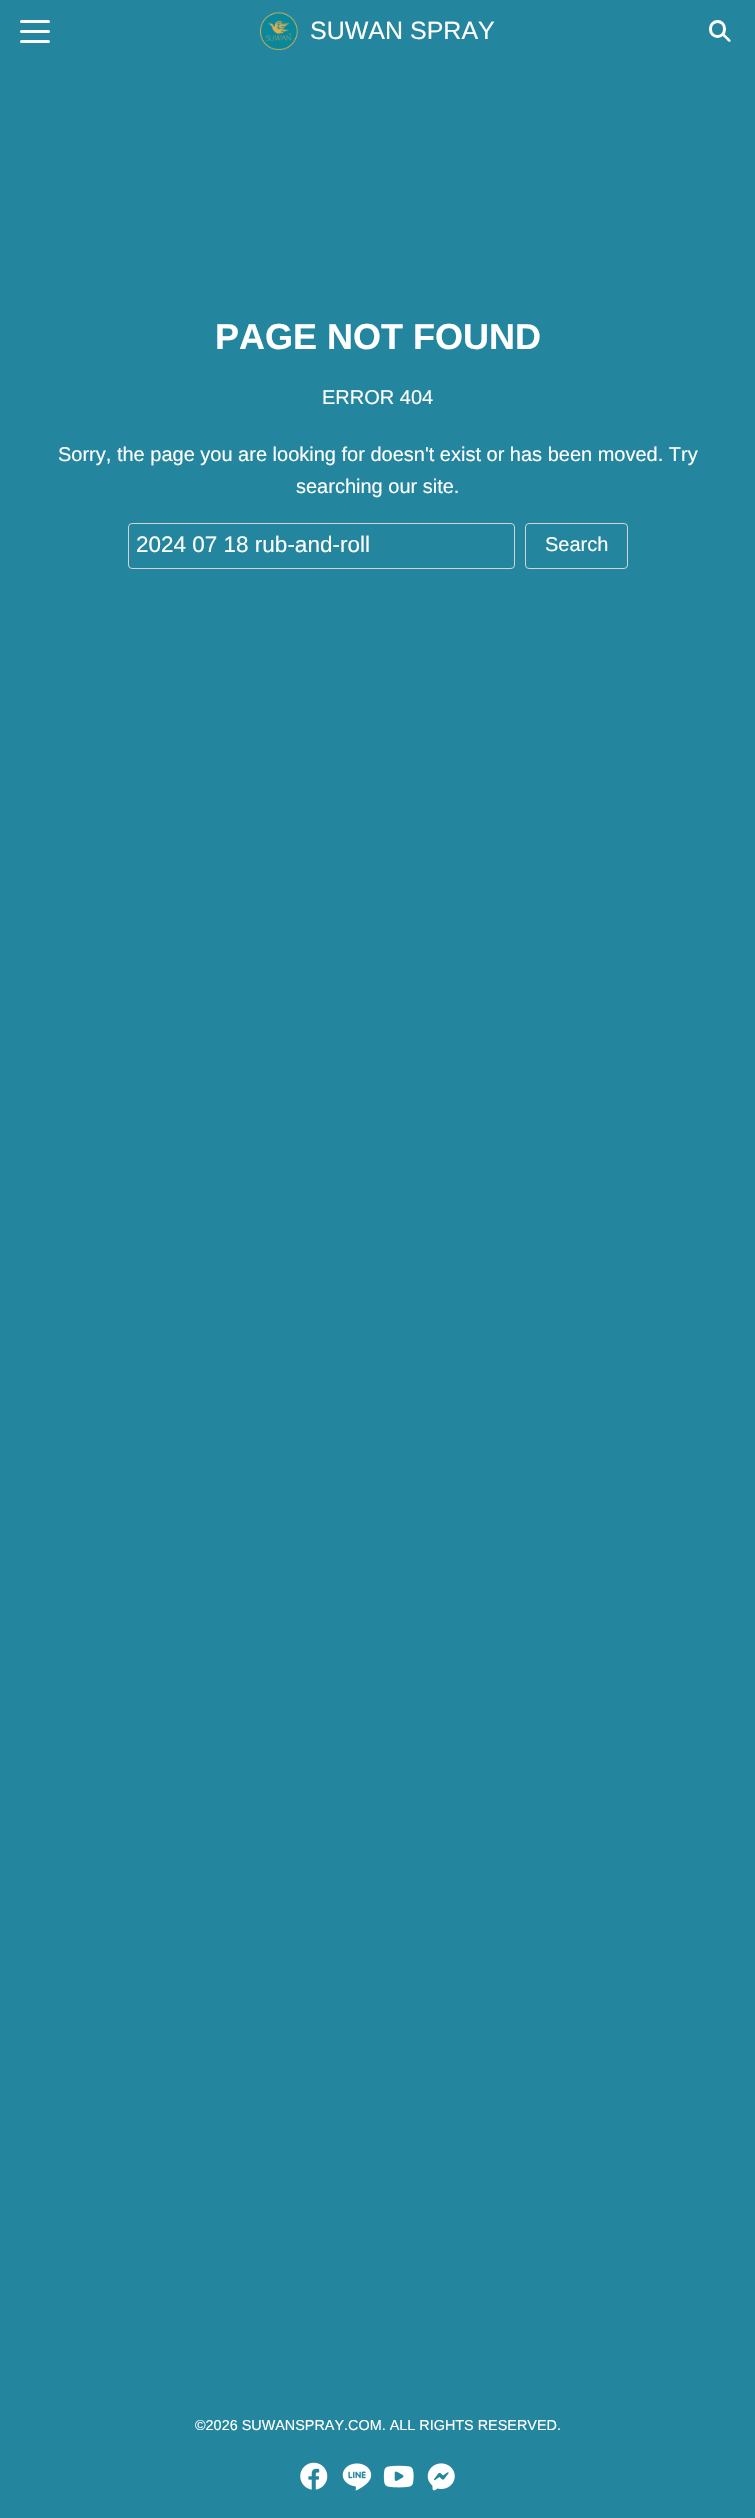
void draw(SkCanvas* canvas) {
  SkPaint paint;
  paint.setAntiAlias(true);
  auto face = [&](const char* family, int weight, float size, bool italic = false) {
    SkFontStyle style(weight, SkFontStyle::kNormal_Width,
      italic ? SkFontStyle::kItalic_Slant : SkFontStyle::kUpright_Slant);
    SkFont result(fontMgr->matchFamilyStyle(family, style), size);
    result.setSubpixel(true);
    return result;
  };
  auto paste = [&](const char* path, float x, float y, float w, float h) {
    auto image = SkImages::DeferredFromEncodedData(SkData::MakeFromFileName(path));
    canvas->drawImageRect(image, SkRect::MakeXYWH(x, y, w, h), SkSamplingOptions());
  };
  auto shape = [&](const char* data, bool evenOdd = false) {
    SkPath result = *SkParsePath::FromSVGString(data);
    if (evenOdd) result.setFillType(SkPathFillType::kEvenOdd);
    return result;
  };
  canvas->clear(0xff24869e);
  paint.setColor(0xffffffff);
  canvas->drawRoundRect(SkRect::MakeXYWH(20, 30, 30, 3), 1.5f, 1.5f, paint);
  canvas->drawRoundRect(SkRect::MakeXYWH(20, 20, 30, 3), 1.5f, 1.5f, paint);
  canvas->drawRoundRect(SkRect::MakeXYWH(20, 40, 30, 3), 1.5f, 1.5f, paint);
  paste("img/1.png", 260, 12, 38, 38);
  canvas->drawPath(shape("M723 34C724.5 32.5 726.5 36 727.5 37C728 37.5 731.5 40 730.5 41.5C729 43 726.5 39.5 725.5 38.5C725 38 721.5 35.5 723 34Z"), paint);
  paint.setStroke(true);
  paint.setStrokeWidth(3);
  canvas->drawRoundRect(SkRect::MakeXYWH(710.5f, 21.5f, 14, 15), 7, 7, paint);
  paint.setStrokeWidth(1);
  paint.setColor(0xffd2d2d7);
  canvas->drawRoundRect(SkRect::MakeXYWH(128.5f, 523.5f, 386, 45), 3.5f, 3.5f, paint);
  canvas->drawRoundRect(SkRect::MakeXYWH(525.5f, 523.5f, 102, 45), 3.5f, 3.5f, paint);
  paste("img/2.png", 300, 2462, 28, 28);
  paste("img/3.png", 342, 2463, 30, 28);
  paste("img/4.png", 383, 2465, 31, 23);
  paste("img/5.png", 427, 2463, 28, 28);
  auto f0 = face("Liberation Sans", 400, 25);
  paint.setStroke(false);
  paint.setColor(0xffffffff);
  canvas->drawString("SUWAN SPRAY", 310, 39, f0, paint);
  auto f1 = face("Liberation Sans", 700, 36);
  canvas->drawString("PAGE NOT FOUND", 215, 349, f1, paint);
  auto f2 = face("Liberation Sans", 400, 20);
  {
    const struct { const char* s; float x, y; } items[] = {
      {"ERROR 404", 322, 404},
      {"Sorry, the page you are looking for doesn't exist or has been moved. Try", 58, 461},
      {"searching our site.", 296, 493},
    };
    for (auto [s, x, y] : items) {
      canvas->drawString(s, x, y, f2, paint);
    }
  }
  auto f3 = face("Liberation Sans", 400, 22.5f);
  canvas->drawString("2024 07 18 rub-and-roll", 136, 552, f3, paint);
  canvas->drawString("Search", 545, 551, f2, paint);
  auto f4 = face("Liberation Sans", 400, 14.4f);
  canvas->drawString("©2026 SUWANSPRAY.COM. ALL RIGHTS RESERVED.", 195, 2430, f4, paint);
}
